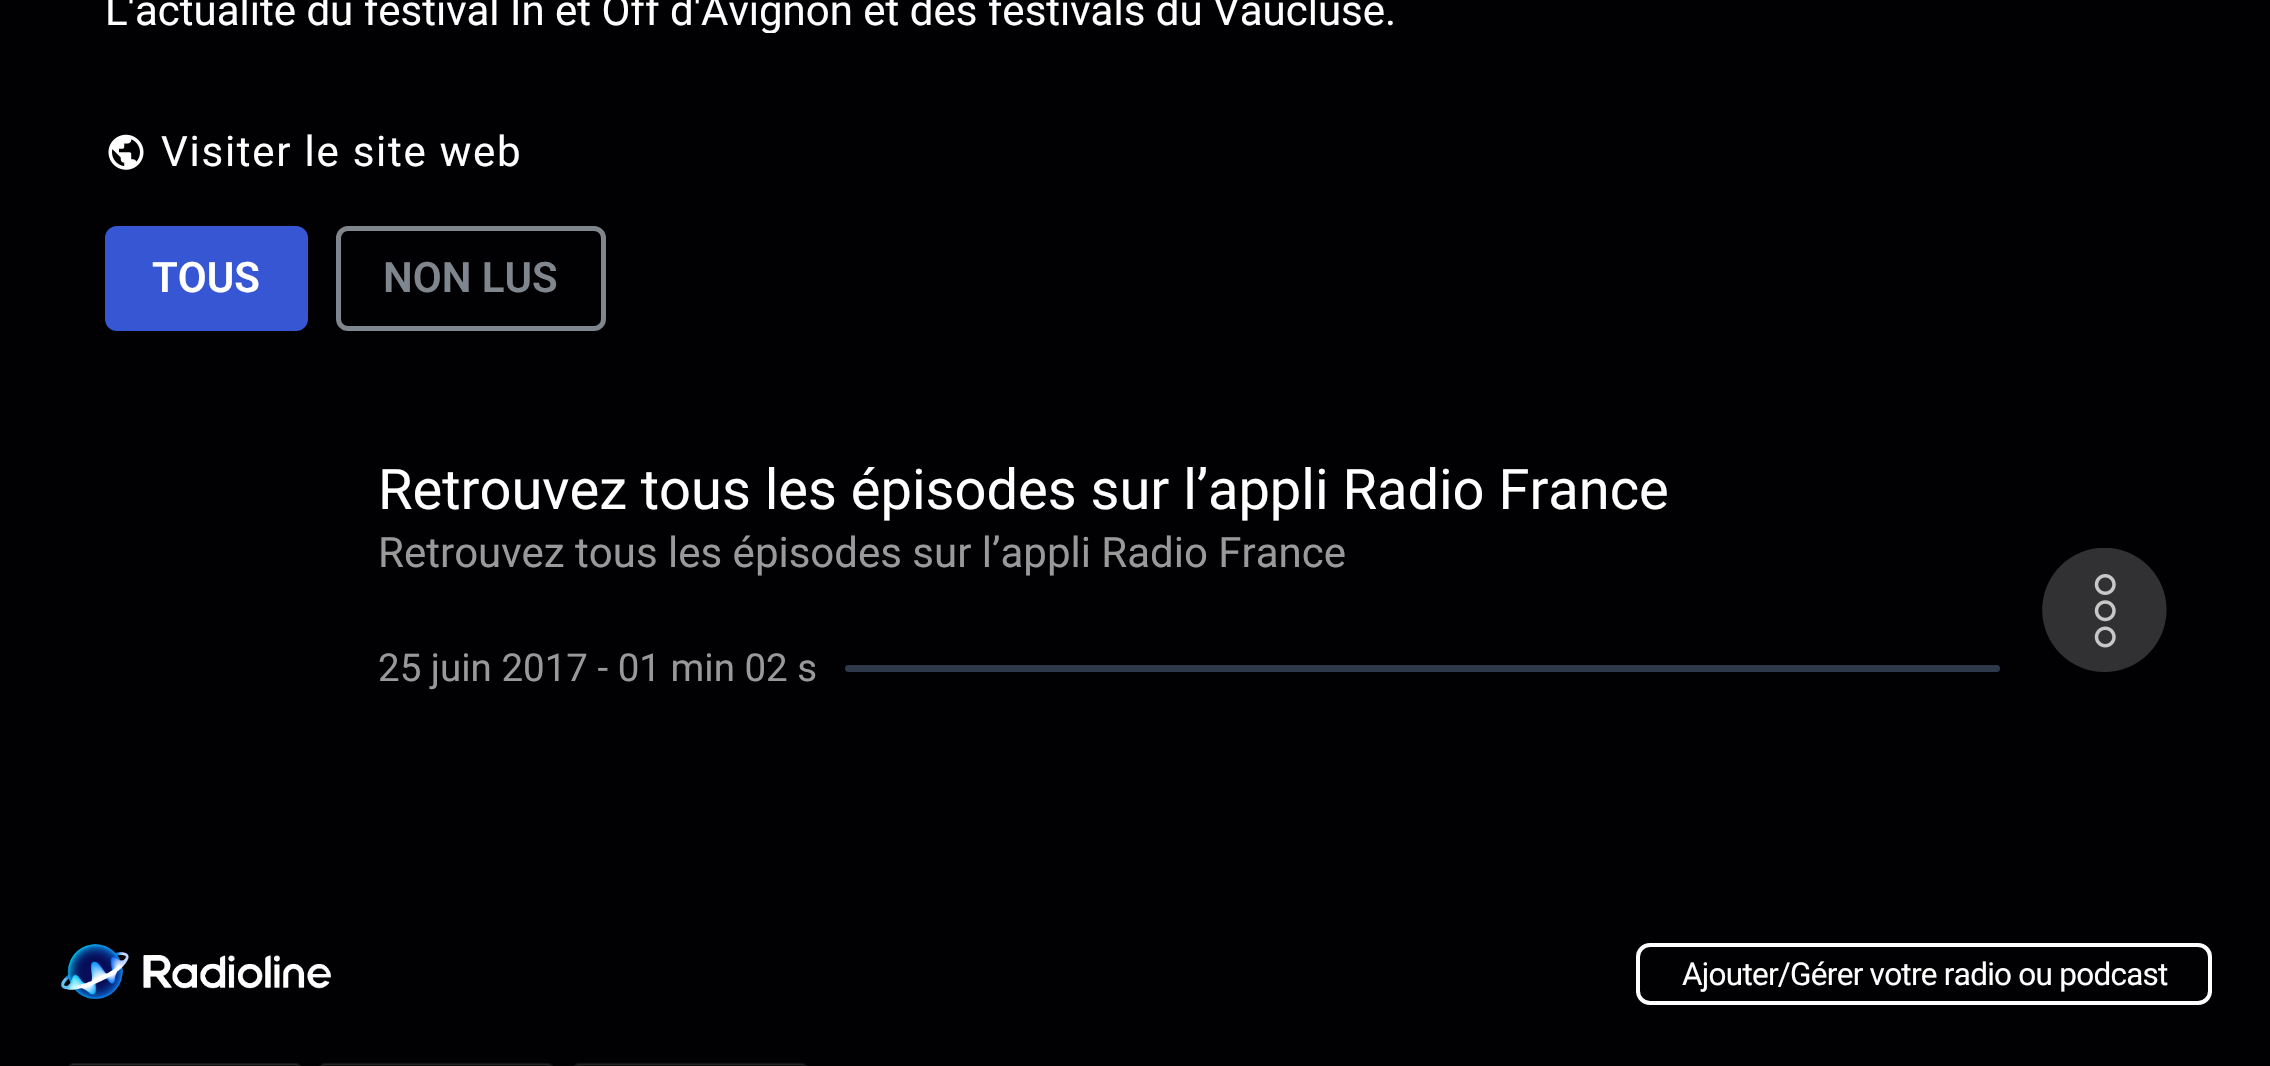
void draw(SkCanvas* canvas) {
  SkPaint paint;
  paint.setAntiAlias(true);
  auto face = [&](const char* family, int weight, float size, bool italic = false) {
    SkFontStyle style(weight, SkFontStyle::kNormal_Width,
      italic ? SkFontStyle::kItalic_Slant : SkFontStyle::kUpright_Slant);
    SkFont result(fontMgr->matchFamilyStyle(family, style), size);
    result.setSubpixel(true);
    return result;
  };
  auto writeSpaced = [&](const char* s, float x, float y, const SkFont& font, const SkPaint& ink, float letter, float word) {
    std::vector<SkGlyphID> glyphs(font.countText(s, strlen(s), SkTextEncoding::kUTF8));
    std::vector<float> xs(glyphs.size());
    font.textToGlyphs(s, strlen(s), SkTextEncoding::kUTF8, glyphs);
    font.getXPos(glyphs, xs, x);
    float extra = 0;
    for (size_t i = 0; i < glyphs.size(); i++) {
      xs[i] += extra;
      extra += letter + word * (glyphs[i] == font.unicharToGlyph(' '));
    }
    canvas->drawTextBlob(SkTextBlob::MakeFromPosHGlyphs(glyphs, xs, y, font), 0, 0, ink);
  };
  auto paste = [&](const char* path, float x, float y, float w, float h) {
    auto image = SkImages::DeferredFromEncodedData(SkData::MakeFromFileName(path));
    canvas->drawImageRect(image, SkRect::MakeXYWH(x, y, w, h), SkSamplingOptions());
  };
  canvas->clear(0xff010103);
  paste("img/1.png", 108, 134, 36, 36);
  paint.setColor(0xff3756d3);
  canvas->drawRoundRect(SkRect::MakeXYWH(107.5f, 228.5f, 198, 100), 9.5f, 9.5f, paint);
  paint.setStroke(true);
  paint.setStrokeWidth(5);
  canvas->drawRoundRect(SkRect::MakeXYWH(107.5f, 228.5f, 198, 100), 9.5f, 9.5f, paint);
  paint.setColor(0xff7f868e);
  canvas->drawRoundRect(SkRect::MakeXYWH(338.5f, 228.5f, 265, 100), 9.5f, 9.5f, paint);
  paint.setStroke(false);
  paint.setColor(0xff2e384b);
  canvas->drawRoundRect(SkRect::MakeXYWH(845, 665, 1155, 7), 3.5f, 3.5f, paint);
  paste("img/2.png", 2042, 548, 125, 124);
  paste("img/3.png", 61, 944, 270, 55);
  paint.setStroke(true);
  paint.setStrokeWidth(4);
  paint.setColor(0xffffffff);
  canvas->drawRoundRect(SkRect::MakeXYWH(1638, 945, 572, 58), 12, 12, paint);
  paste("img/4.png", 68, 1063, 233, 3);
  paste("img/5.png", 319, 1063, 235, 3);
  paste("img/6.png", 573, 1063, 234, 3);
  canvas->save();
  canvas->clipRect(SkRect::MakeXYWH(105, 0, 2062, 33));
  auto f0 = face("Roboto", 400, 42);
  paint.setStroke(false);
  canvas->drawString("L'actualité du festival In et Off d'Avignon et des festivals du Vaucluse.", 105, 25, f0, paint);
  canvas->restore();
  writeSpaced("Visiter le site web", 161, 166, f0, paint, 1.75f, 0);
  auto f1 = face("Roboto", 600, 42);
  canvas->drawString("TOUS", 152, 292, f1, paint);
  paint.setColor(0xff7f868e);
  canvas->drawString("NON LUS", 383, 292, f1, paint);
  auto f2 = face("Roboto", 400, 56);
  paint.setColor(0xffffffff);
  canvas->drawString("Retrouvez tous les épisodes sur l’appli Radio France", 378, 509, f2, paint);
  paint.setColor(0xff99999a);
  canvas->drawString("Retrouvez tous les épisodes sur l’appli Radio France", 378, 567, f0, paint);
  auto f3 = face("Roboto", 400, 38.5f);
  canvas->drawString("25 juin 2017 - 01 min 02 s", 378, 681, f3, paint);
  auto f4 = face("Roboto", 400, 31.5f);
  paint.setColor(0xffffffff);
  writeSpaced("Ajouter/Gérer votre radio ou podcast", 1682, 985, f4, paint, -0.75f, 0);
}
